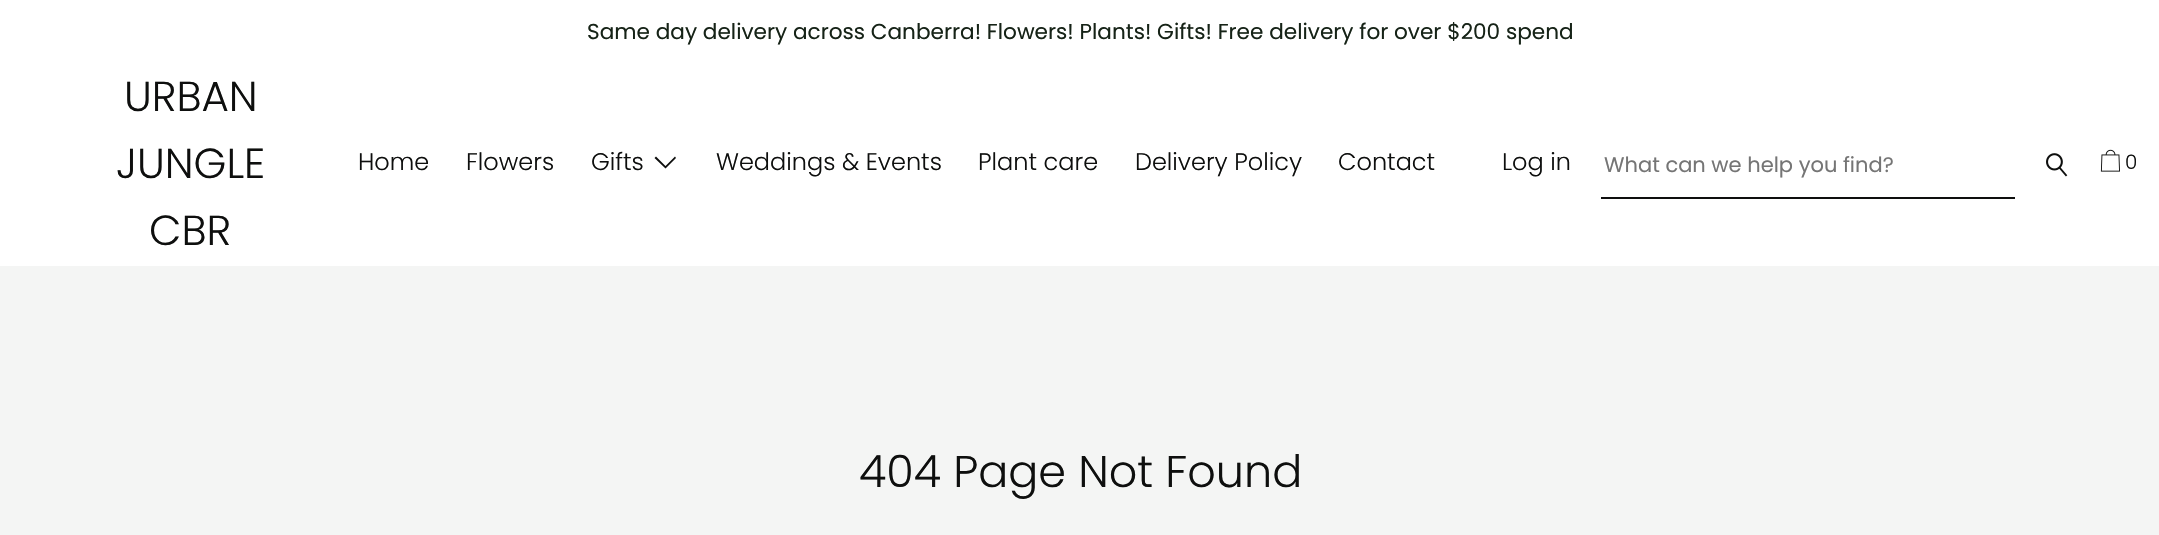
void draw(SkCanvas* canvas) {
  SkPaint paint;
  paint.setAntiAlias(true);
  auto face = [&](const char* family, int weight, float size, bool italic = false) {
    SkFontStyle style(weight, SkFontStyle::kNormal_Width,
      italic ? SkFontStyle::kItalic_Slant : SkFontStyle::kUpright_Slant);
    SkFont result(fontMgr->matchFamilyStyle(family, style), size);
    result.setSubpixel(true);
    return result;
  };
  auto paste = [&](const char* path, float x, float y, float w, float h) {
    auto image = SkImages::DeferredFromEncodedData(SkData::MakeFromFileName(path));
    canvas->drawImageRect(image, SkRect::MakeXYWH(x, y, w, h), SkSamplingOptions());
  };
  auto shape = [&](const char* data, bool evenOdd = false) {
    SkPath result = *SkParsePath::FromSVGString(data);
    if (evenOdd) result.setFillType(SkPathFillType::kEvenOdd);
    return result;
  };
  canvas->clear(0xfff4f5f4);
  paint.setColor(0xffffffff);
  canvas->drawRect(SkRect::MakeXYWH(0, 0, 2159, 266), paint);
  paint.setColor(0xff0e0f0e);
  canvas->drawPath(shape("M665.5 166L675 156.5L676 158L665.5 168.5L654.5 158L656 156.5Z", true), paint);
  canvas->drawRect(SkRect::MakeXYWH(1601, 197, 414, 2), paint);
  paste("img/1.png", 2046, 153, 22, 24);
  paste("img/2.png", 2100, 149, 20, 23);
  auto f0 = face("Poppins", 400, 21.6f);
  paint.setColor(0xff162317);
  canvas->drawString("Same day delivery across Canberra! Flowers! Plants! Gifts! Free delivery for over $200 spend", 587, 39, f0, paint);
  auto f1 = face("Poppins", 300, 42);
  paint.setColor(0xff0e0f0e);
  {
    const struct { const char* s; float x, y; } items[] = {
      {"URBAN", 124, 111},
      {"JUNGLE", 116, 178},
      {"CBR", 149, 245},
    };
    for (auto [s, x, y] : items) {
      canvas->drawString(s, x, y, f1, paint);
    }
  }
  auto f2 = face("Poppins", 300, 24);
  {
    const struct { const char* s; float x, y; } items[] = {
      {"Home", 358, 170},
      {"Flowers", 466, 170},
      {"Gifts", 591, 170},
      {"Weddings & Events", 716, 170},
      {"Plant care", 978, 170},
      {"Delivery Policy", 1135, 170},
      {"Contact", 1338, 170},
      {"Log in", 1502, 170},
    };
    for (auto [s, x, y] : items) {
      canvas->drawString(s, x, y, f2, paint);
    }
  }
  auto f3 = face("Poppins", 400, 21);
  paint.setColor(0xff757575);
  canvas->drawString("What can we help you find?", 1604, 172, f3, paint);
  auto f4 = face("Poppins", 300, 20);
  paint.setColor(0xff0e0f0e);
  canvas->drawString("0", 2125, 169, f4, paint);
  auto f5 = face("Poppins", 300, 44.5f);
  canvas->drawString("404 Page Not Found", 859, 487, f5, paint);
}
